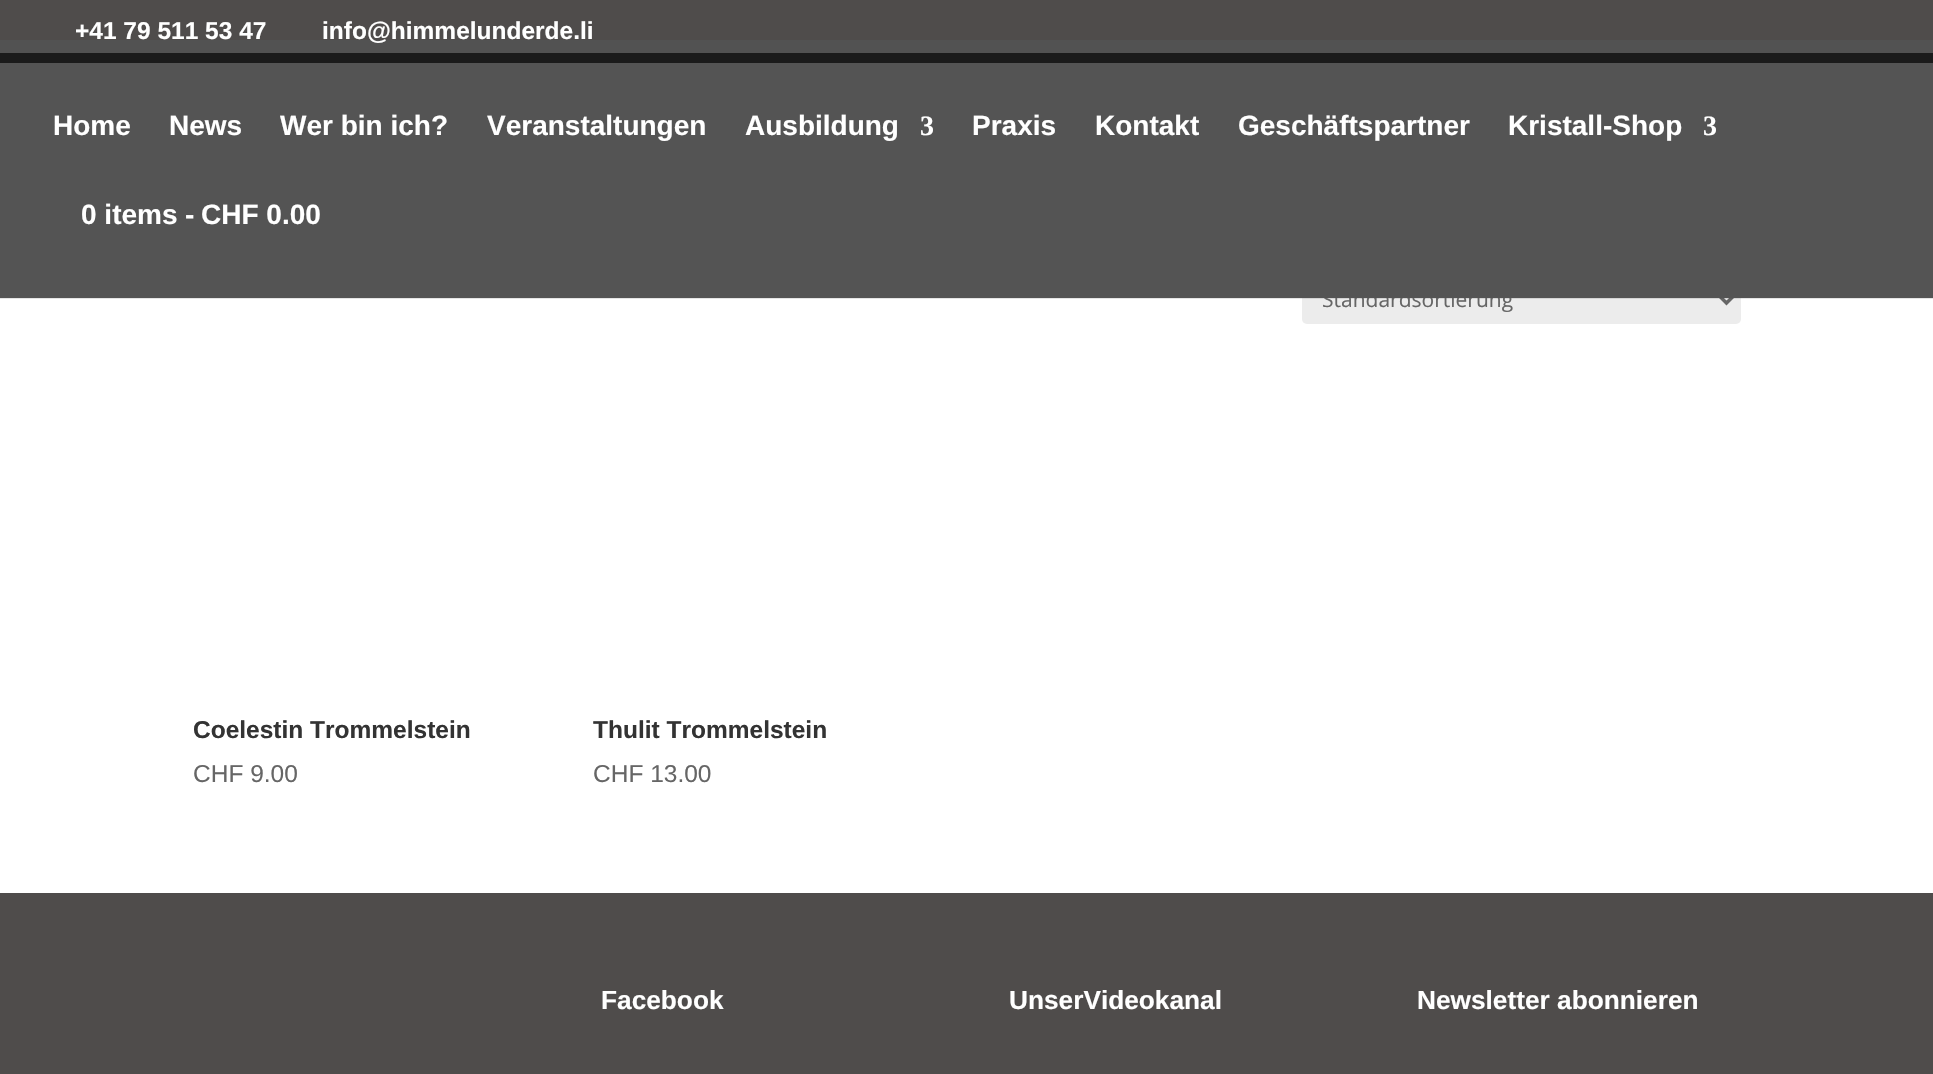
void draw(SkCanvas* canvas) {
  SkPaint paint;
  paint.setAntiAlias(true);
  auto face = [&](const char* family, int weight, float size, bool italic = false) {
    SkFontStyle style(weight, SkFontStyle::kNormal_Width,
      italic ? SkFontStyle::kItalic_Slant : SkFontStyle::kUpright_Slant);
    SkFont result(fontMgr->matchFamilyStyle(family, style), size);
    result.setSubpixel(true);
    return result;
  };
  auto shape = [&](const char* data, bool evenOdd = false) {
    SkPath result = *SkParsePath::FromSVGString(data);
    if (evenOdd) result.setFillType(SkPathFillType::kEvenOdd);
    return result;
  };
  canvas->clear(0xff4f4c4b);
  paint.setColor(0xffffffff);
  canvas->drawRect(SkRect::MakeXYWH(0, 298, 1933, 595), paint);
  paint.setColor(0xffececec);
  canvas->drawRoundRect(SkRect::MakeXYWH(1302, 277, 439, 47), 5, 5, paint);
  paint.setStroke(true);
  paint.setStrokeWidth(3.5f);
  paint.setColor(0xff666666);
  canvas->drawPath(shape("M1719.5 296L1726.5 303L1733.5 296"), paint);
  paint.setStroke(false);
  paint.setColor(0x1a000000);
  canvas->drawPath(shape("M0 298V299H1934V54V298Z"), paint);
  paint.setColor(0xff1b1b1b);
  canvas->drawRect(SkRect::MakeXYWH(0, 53, 1933, 10), paint);
  paint.setColor(0xff525252);
  canvas->drawRect(SkRect::MakeXYWH(0, 40, 1933, 13), paint);
  auto f0 = face("Liberation Sans", 700, 24.5f);
  paint.setColor(0xffffffff);
  canvas->drawString("+41 79 511 53 47", 75, 39, f0, paint);
  canvas->drawString("info@himmelunderde.li", 322, 39, f0, paint);
  auto f1 = face("Open Sans", 400, 21);
  paint.setColor(0xff666666);
  canvas->drawString("Standardsortierung", 1322, 307, f1, paint);
  paint.setColor(0xff545454);
  canvas->drawRect(SkRect::MakeXYWH(0, 63, 1933, 235), paint);
  auto f2 = face("Liberation Sans", 700, 28);
  paint.setColor(0xffffffff);
  {
    const struct { const char* s; float x, y; } items[] = {
      {"CHF 0.00", 201, 224},
      {"-", 185, 224},
      {"0 items", 81, 224},
    };
    for (auto [s, x, y] : items) {
      canvas->drawString(s, x, y, f2, paint);
    }
  }
  auto f3 = face("Liberation Serif", 700, 28);
  canvas->drawString("3", 1703, 135, f3, paint);
  {
    const struct { const char* s; float x, y; } items[] = {
      {"Kristall-Shop", 1508, 135},
      {"Geschäftspartner", 1238, 135},
      {"Kontakt", 1095, 135},
      {"Praxis", 972, 135},
    };
    for (auto [s, x, y] : items) {
      canvas->drawString(s, x, y, f2, paint);
    }
  }
  canvas->drawString("3", 920, 135, f3, paint);
  {
    const struct { const char* s; float x, y; } items[] = {
      {"Ausbildung", 745, 135},
      {"Veranstaltungen", 487, 135},
      {"Wer bin ich?", 280, 135},
      {"News", 169, 135},
      {"Home", 53, 135},
    };
    for (auto [s, x, y] : items) {
      canvas->drawString(s, x, y, f2, paint);
    }
  }
  paint.setColor(0xff333333);
  canvas->drawString("Coelestin Trommelstein", 193, 738, f0, paint);
  auto f4 = face("Liberation Sans", 400, 24.5f);
  paint.setColor(0xff666666);
  canvas->drawString("CHF 9.00", 193, 782, f4, paint);
  paint.setColor(0xff333333);
  canvas->drawString("Thulit Trommelstein", 593, 738, f0, paint);
  paint.setColor(0xff666666);
  canvas->drawString("CHF 13.00", 593, 782, f4, paint);
  auto f5 = face("Liberation Sans", 700, 26.25f);
  paint.setColor(0xffffffff);
  {
    const struct { const char* s; float x, y; } items[] = {
      {"Facebook", 601, 1009},
      {"UnserVideokanal", 1009, 1009},
      {"Newsletter abonnieren", 1417, 1009},
    };
    for (auto [s, x, y] : items) {
      canvas->drawString(s, x, y, f5, paint);
    }
  }
}
